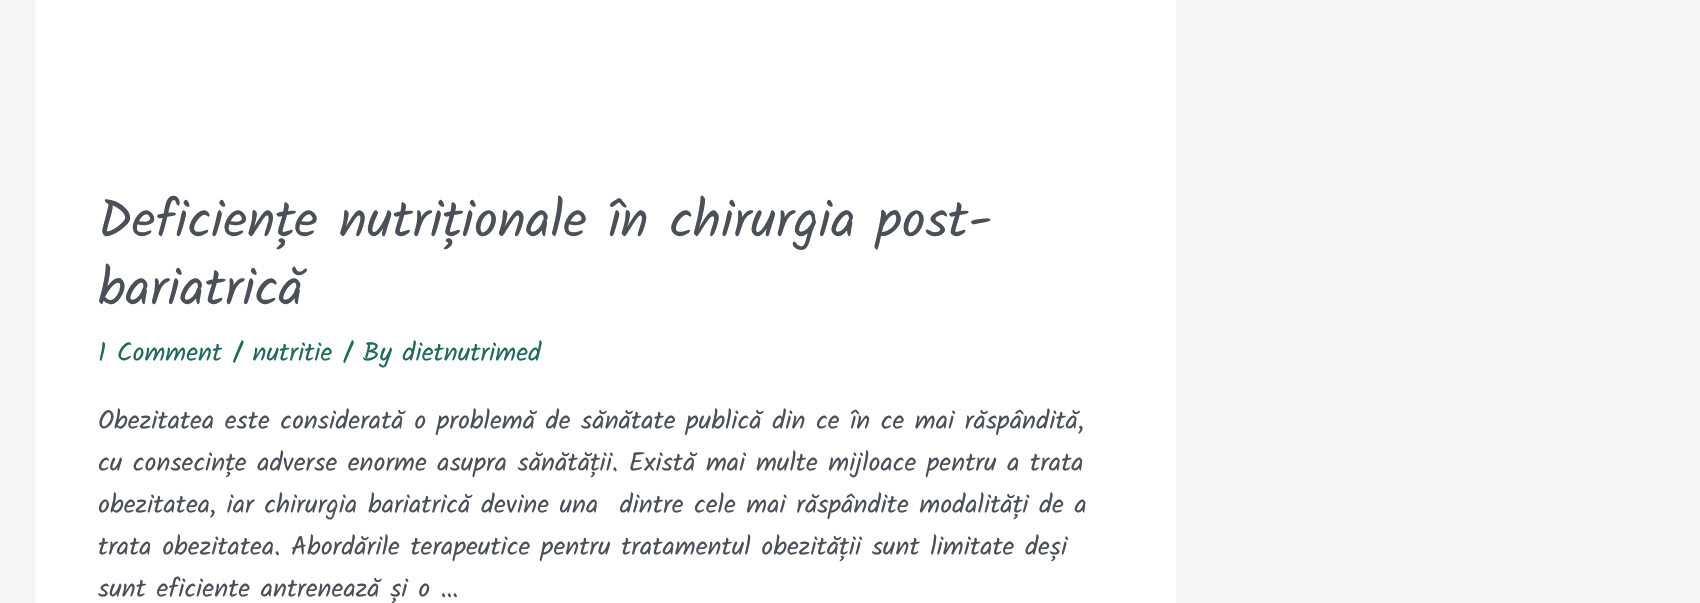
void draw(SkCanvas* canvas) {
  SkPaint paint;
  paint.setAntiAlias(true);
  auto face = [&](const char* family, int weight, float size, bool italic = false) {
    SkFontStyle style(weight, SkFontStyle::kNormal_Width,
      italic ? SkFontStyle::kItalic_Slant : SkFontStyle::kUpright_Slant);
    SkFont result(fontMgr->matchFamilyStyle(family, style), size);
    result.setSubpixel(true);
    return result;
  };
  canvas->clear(0xfff5f5f5);
  paint.setColor(0xffffffff);
  canvas->drawRect(SkRect::MakeXYWH(35, 0, 1141, 603), paint);
  auto f0 = face("Kalam", 400, 52.5f);
  paint.setColor(0xff4b4f58);
  canvas->drawString("Deficiențe nutriționale în chirurgia post-", 98, 237, f0, paint);
  canvas->drawString("bariatrică", 98, 305, f0, paint);
  auto f1 = face("Kalam", 400, 26.25f);
  paint.setColor(0xff206a5d);
  canvas->drawString("1 Comment / nutritie / By dietnutrimed", 98, 361, f1, paint);
  paint.setColor(0xff4b4f58);
  {
    const struct { const char* s; float x, y; } items[] = {
      {"Obezitatea este considerată o problemă de sănătate publică din ce în ce mai răspândită,", 98, 429},
      {"cu consecințe adverse enorme asupra sănătății. Există mai multe mijloace pentru a trata", 98, 471},
      {"obezitatea, iar chirurgia bariatrică devine una  dintre cele mai răspândite modalități de a", 98, 513},
      {"trata obezitatea. Abordările terapeutice pentru tratamentul obezității sunt limitate deși", 98, 555},
      {"sunt eficiente antrenează și o …", 98, 597},
    };
    for (auto [s, x, y] : items) {
      canvas->drawString(s, x, y, f1, paint);
    }
  }
}
